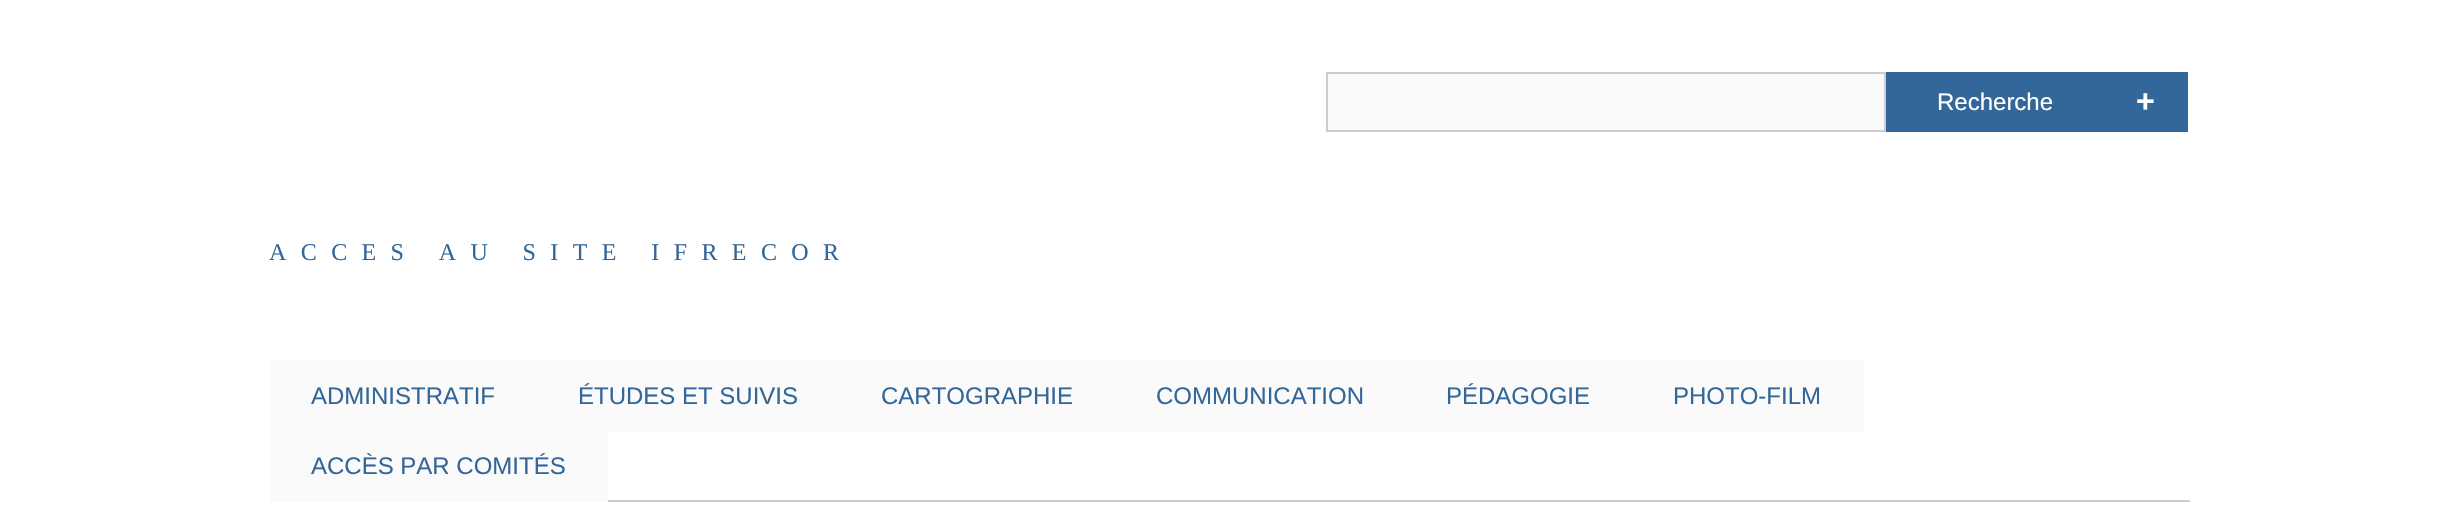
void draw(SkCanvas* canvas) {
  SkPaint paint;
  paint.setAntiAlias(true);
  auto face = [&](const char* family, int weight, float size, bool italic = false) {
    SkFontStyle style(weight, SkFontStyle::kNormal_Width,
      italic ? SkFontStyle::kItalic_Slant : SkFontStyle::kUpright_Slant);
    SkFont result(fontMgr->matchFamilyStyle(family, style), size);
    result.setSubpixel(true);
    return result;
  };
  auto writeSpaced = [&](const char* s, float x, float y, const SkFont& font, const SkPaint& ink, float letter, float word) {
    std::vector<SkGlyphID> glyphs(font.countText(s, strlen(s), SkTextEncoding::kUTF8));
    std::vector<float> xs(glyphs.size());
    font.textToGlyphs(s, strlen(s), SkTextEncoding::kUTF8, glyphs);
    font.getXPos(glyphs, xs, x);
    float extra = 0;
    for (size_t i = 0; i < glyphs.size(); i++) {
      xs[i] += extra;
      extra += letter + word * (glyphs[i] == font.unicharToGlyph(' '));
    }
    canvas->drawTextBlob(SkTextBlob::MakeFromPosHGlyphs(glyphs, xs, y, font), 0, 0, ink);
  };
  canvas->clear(0xffffffff);
  paint.setColor(0xfffafafa);
  canvas->drawRect(SkRect::MakeXYWH(1327, 73, 558, 58), paint);
  paint.setStroke(true);
  paint.setStrokeWidth(2);
  paint.setColor(0xffcccccc);
  canvas->drawRect(SkRect::MakeXYWH(1327, 73, 558, 58), paint);
  paint.setStroke(false);
  {
    const struct { float x, y, w, h; SkColor color; } items[] = {
      {1886, 72, 302, 60, 0xff336699},
      {608, 500, 1582, 2, 0xffcccccc},
      {270, 360, 266, 70, 0xfffafafa},
      {536, 360, 1328, 72, 0xfffafafa},
      {270, 430, 338, 72, 0xfffafafa},
    };
    for (auto [x, y, w, h, color] : items) {
      paint.setColor(color);
      canvas->drawRect(SkRect::MakeXYWH(x, y, w, h), paint);
    }
  }
  auto f0 = face("Liberation Sans", 400, 24);
  paint.setColor(0xffffffff);
  canvas->drawString("Recherche", 1937, 110, f0, paint);
  auto f1 = face("Liberation Sans", 700, 32);
  canvas->drawString("+", 2136, 112, f1, paint);
  auto f2 = face("Liberation Serif", 400, 24);
  paint.setColor(0xff336699);
  writeSpaced("ACCES AU SITE IFRECOR", 269, 260, f2, paint, 14.4f, 0);
  {
    const struct { const char* s; float x, y; } items[] = {
      {"ADMINISTRATIF", 311, 404},
      {"ÉTUDES ET SUIVIS", 578, 404},
      {"CARTOGRAPHIE", 881, 404},
      {"COMMUNICATION", 1156, 404},
      {"PÉDAGOGIE", 1446, 404},
      {"PHOTO-FILM", 1673, 404},
      {"ACCÈS PAR COMITÉS", 311, 474},
    };
    for (auto [s, x, y] : items) {
      canvas->drawString(s, x, y, f0, paint);
    }
  }
}
